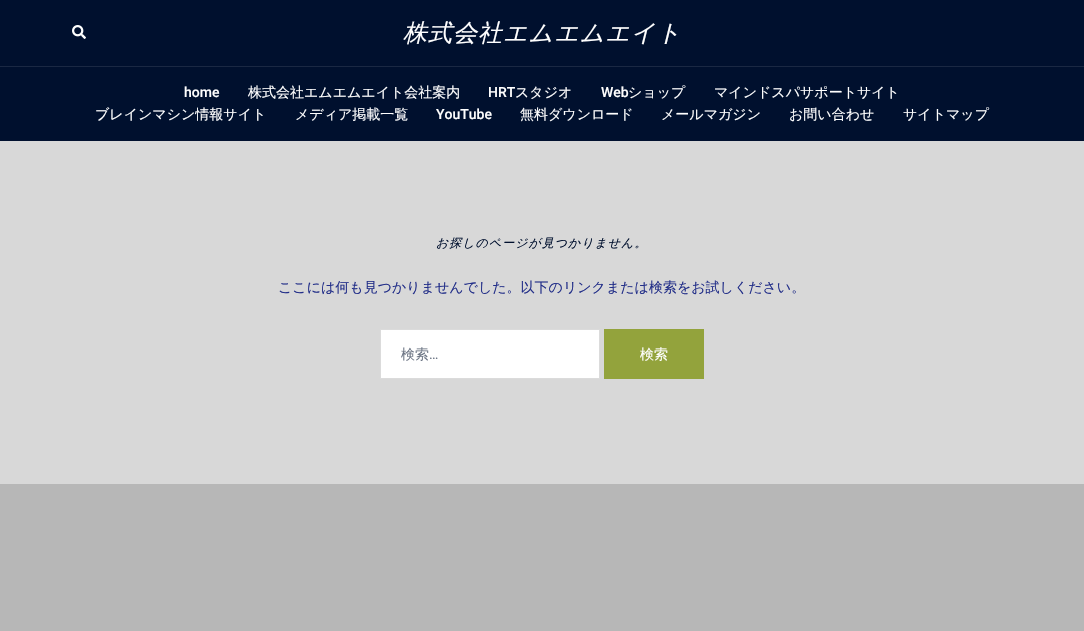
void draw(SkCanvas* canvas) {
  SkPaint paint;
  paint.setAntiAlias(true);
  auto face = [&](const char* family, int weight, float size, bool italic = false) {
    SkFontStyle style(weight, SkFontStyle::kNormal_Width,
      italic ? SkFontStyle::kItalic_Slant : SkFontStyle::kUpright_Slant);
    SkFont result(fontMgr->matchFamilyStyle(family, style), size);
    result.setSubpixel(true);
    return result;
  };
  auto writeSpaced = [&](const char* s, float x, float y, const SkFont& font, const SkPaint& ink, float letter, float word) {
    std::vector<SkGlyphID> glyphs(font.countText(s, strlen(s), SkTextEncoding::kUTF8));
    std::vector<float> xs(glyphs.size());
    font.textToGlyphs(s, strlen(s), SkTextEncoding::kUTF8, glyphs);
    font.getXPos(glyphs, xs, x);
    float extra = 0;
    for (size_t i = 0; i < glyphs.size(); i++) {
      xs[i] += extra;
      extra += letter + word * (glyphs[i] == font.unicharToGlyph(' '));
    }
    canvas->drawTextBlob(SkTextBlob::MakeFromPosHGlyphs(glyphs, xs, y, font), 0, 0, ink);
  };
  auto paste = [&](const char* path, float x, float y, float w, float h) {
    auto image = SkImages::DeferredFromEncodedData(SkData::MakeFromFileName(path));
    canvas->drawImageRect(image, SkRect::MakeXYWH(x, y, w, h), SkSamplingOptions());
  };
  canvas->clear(0xffd8d8d8);
  paint.setColor(0xff00102e);
  canvas->drawRect(SkRect::MakeXYWH(0, 0, 1084, 66), paint);
  paint.setColor(0xff1a2843);
  canvas->drawRect(SkRect::MakeXYWH(0, 66, 1084, 1), paint);
  paste("img/1.png", 72, 25, 14, 14);
  paint.setColor(0xff00102e);
  canvas->drawRect(SkRect::MakeXYWH(0, 67, 1084, 74), paint);
  paint.setColor(0xffffffff);
  canvas->drawRect(SkRect::MakeXYWH(380.5f, 329.5f, 219, 49), paint);
  paint.setStroke(true);
  paint.setStrokeWidth(1);
  paint.setColor(0xffdbdbdb);
  canvas->drawRect(SkRect::MakeXYWH(380.5f, 329.5f, 219, 49), paint);
  paint.setStroke(false);
  paint.setColor(0xff93a33c);
  canvas->drawRect(SkRect::MakeXYWH(604, 329, 100, 50), paint);
  paint.setColor(0xffb7b7b7);
  canvas->drawRect(SkRect::MakeXYWH(0, 484, 1084, 147), paint);
  auto f0 = face("WenQuanYi Zen Hei", 500, 24, true);
  paint.setColor(0xffffffff);
  writeSpaced("株式会社エムエムエイト", 403, 41, f0, paint, 1, 0);
  auto f1 = face("Roboto", 500, 14);
  canvas->drawString("home", 184, 97, f1, paint);
  auto f2 = face("WenQuanYi Zen Hei", 500, 14);
  canvas->drawString("株式会社エムエムエイト会社案内", 248, 97, f2, paint);
  canvas->drawString("HRT", 488, 97, f1, paint);
  canvas->drawString("スタジオ", 515, 97, f2, paint);
  canvas->drawString("Web", 601, 97, f1, paint);
  {
    const struct { const char* s; float x, y; } items[] = {
      {"ショップ", 628, 97},
      {"マインドスパサポートサイト", 714, 97},
      {"ブレインマシン情報サイト", 95, 119},
      {"メディア掲載一覧", 295, 119},
    };
    for (auto [s, x, y] : items) {
      canvas->drawString(s, x, y, f2, paint);
    }
  }
  canvas->drawString("YouTube", 436, 119, f1, paint);
  {
    const struct { const char* s; float x, y; } items[] = {
      {"無料ダウンロード", 520, 119},
      {"メールマガジン", 661, 119},
      {"お問い合わせ", 789, 119},
      {"サイトマップ", 903, 119},
    };
    for (auto [s, x, y] : items) {
      canvas->drawString(s, x, y, f2, paint);
    }
  }
  auto f3 = face("WenQuanYi Zen Hei", 500, 12, true);
  paint.setColor(0xff00102e);
  writeSpaced("お探しのページが見つかりません。", 436, 247, f3, paint, 1, 0);
  paint.setColor(0xff232f89);
  canvas->drawString("ここには何も見つかりませんでした。以下のリンクまたは検索をお試しください。", 278, 292, f2, paint);
  paint.setColor(0xff6d7685);
  canvas->drawString("検索", 401, 359, f2, paint);
  auto f4 = face("Roboto", 400, 14);
  canvas->drawString("…", 429, 359, f4, paint);
  paint.setColor(0xffffffff);
  canvas->drawString("検索", 640, 359, f2, paint);
}
